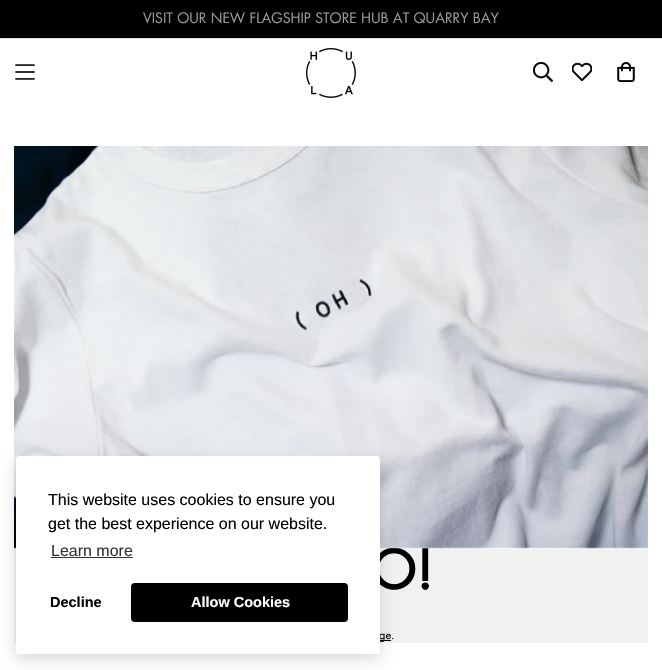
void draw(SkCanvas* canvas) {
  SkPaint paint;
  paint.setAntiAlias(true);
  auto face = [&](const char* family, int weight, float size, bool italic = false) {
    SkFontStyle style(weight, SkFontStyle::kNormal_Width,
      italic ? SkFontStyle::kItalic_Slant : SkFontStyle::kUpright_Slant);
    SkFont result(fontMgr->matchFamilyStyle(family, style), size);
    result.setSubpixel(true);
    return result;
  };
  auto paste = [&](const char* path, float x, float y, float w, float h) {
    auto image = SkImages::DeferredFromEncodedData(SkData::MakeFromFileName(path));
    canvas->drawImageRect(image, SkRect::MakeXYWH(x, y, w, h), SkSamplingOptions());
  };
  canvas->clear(0xffffffff);
  paint.setColor(0xff000000);
  canvas->drawRect(SkRect::MakeXYWH(0, 0, 662, 38), paint);
  paint.setColor(0xffdedede);
  canvas->drawRect(SkRect::MakeXYWH(0, 38, 662, 1), paint);
  paste("img/1.png", 15, 64, 20, 16);
  paste("img/2.png", 306, 48, 50, 50);
  paste("img/3.png", 533, 62, 20, 20);
  paste("img/4.png", 572, 62, 20, 20);
  paste("img/5.png", 617, 62, 18, 20);
  paint.setColor(0xfff1f1ef);
  canvas->drawRect(SkRect::MakeXYWH(14, 549, 634, 94), paint);
  paint.setColor(0xff000000);
  canvas->drawRect(SkRect::MakeXYWH(380, 640, 11, 1), paint);
  auto f0 = face("Futura", 400, 14);
  paint.setColor(0xff999999);
  canvas->drawString("VISIT OUR NEW FLAGSHIP STORE HUB AT QUARRY BAY", 143, 23, f0, paint);
  auto f1 = face("Futura", 700, 52);
  paint.setColor(0xff000000);
  canvas->drawString("O!", 371, 589, f1, paint);
  paste("img/6.png", 14, 146, 634, 403);
  paint.setColor(0x26000000);
  paint.setMaskFilter(SkMaskFilter::MakeBlur(kNormal_SkBlurStyle, 7.5f));
  canvas->drawRoundRect(SkRect::MakeXYWH(16, 461, 364, 198), 4, 4, paint);
  paint.setMaskFilter(nullptr);
  auto f2 = face("Futura", 400, 11);
  paint.setColor(0xff000000);
  canvas->drawString("ge.", 379, 639, f2, paint);
  paint.setColor(0xffffffff);
  canvas->drawRoundRect(SkRect::MakeXYWH(16, 456, 364, 198), 4, 4, paint);
  auto f3 = face("Liberation Sans", 400, 16);
  paint.setColor(0xff333333);
  canvas->drawString("Learn more", 51, 556, f3, paint);
  canvas->drawRect(SkRect::MakeXYWH(51, 557, 82, 1), paint);
  paint.setColor(0xff000000);
  canvas->drawRoundRect(SkRect::MakeXYWH(131, 583, 217, 39), 4, 4, paint);
  auto f4 = face("Liberation Sans", 700, 14.5f);
  paint.setColor(0xffffffff);
  canvas->drawString("Allow Cookies", 191, 607, f4, paint);
  paint.setColor(0xff000000);
  canvas->drawString("Decline", 50, 607, f4, paint);
  canvas->drawString("get the best experience on our website.", 48, 529, f3, paint);
  canvas->drawString("This website uses cookies to ensure you", 48, 505, f3, paint);
}
